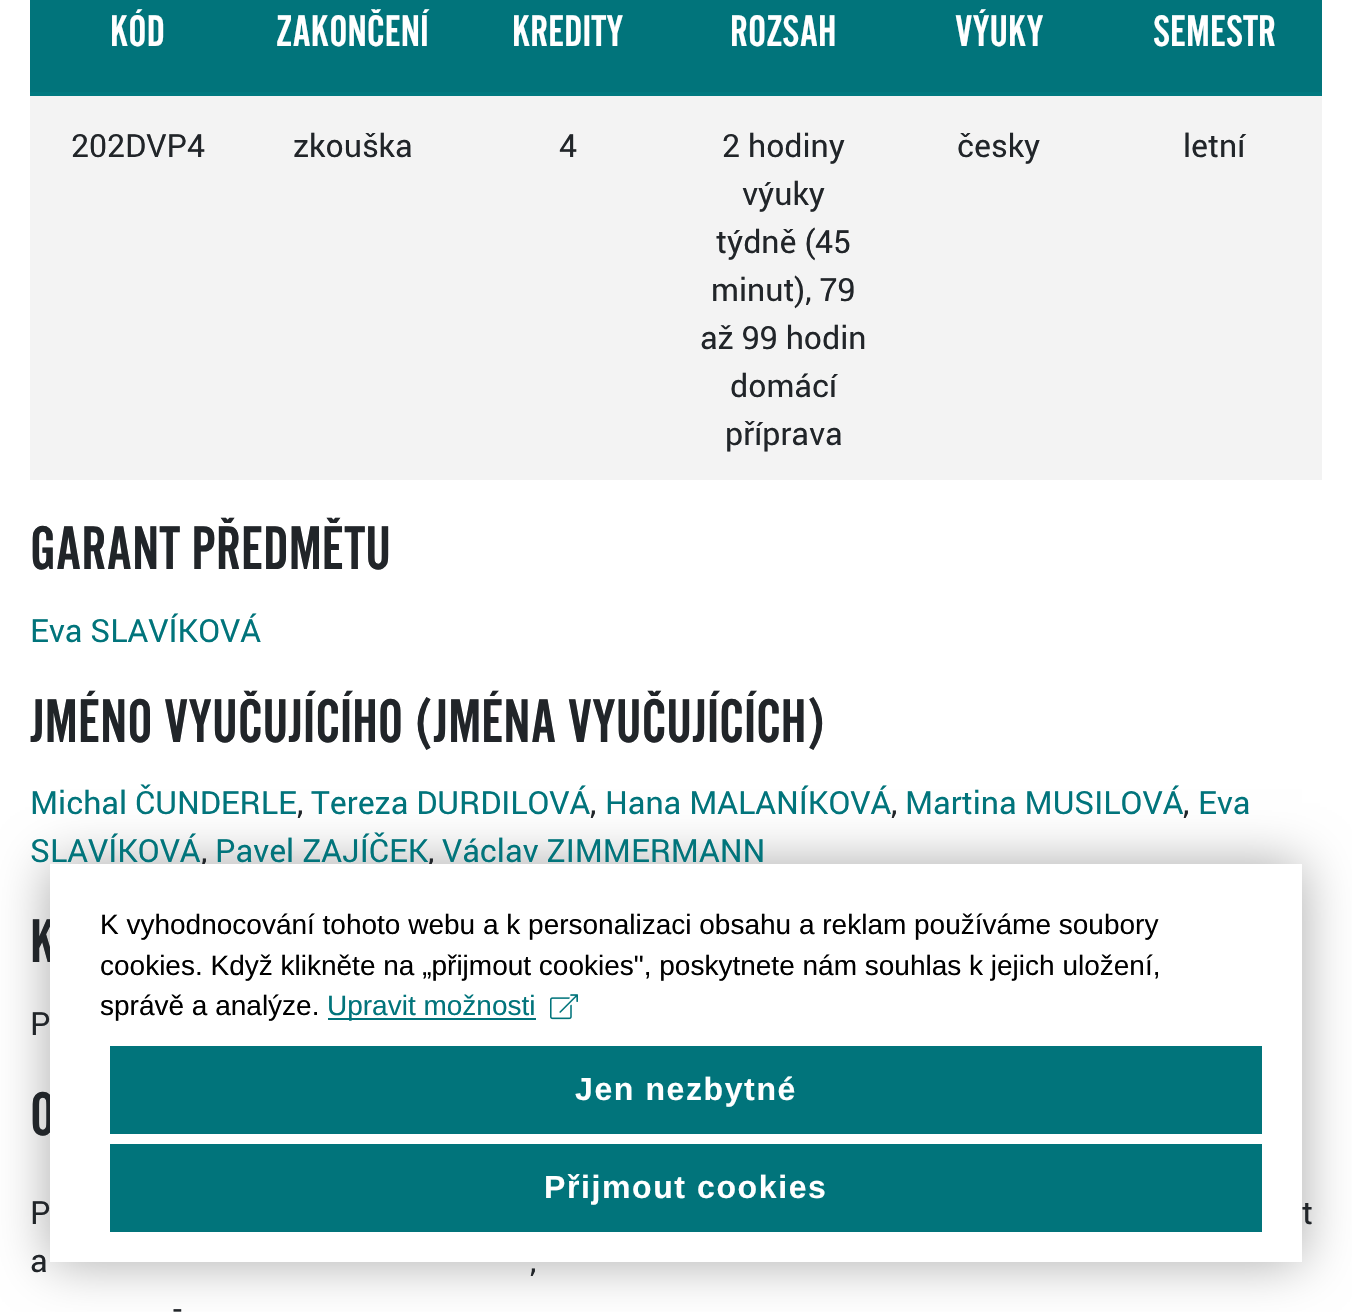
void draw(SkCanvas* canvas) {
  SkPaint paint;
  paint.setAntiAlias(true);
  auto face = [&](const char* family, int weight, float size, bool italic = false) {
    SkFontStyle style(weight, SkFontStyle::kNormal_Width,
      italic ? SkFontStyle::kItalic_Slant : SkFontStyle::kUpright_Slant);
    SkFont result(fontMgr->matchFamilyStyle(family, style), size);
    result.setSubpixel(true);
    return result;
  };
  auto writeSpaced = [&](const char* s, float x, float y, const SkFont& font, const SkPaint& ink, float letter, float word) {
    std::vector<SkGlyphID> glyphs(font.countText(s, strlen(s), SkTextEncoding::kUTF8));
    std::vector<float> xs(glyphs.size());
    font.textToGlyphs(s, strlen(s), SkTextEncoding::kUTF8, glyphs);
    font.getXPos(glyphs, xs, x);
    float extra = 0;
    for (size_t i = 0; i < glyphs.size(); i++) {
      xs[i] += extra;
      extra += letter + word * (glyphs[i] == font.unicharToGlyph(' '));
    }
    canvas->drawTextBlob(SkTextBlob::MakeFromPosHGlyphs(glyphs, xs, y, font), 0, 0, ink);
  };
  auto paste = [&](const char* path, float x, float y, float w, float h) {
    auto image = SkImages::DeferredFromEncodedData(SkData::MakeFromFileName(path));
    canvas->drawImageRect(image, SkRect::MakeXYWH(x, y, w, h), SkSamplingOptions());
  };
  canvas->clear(0xffffffff);
  {
    const struct { float x, y, w, h; SkColor color; } items[] = {
      {30, 0, 1292, 92, 0xff01747b},
      {30, 92, 1292, 4, 0xff017980},
      {30, 96, 1292, 384, 0xfff3f3f3},
    };
    for (auto [x, y, w, h, color] : items) {
      paint.setColor(color);
      canvas->drawRect(SkRect::MakeXYWH(x, y, w, h), paint);
    }
  }
  paint.setColor(0xffaaaaaa);
  paint.setMaskFilter(SkMaskFilter::MakeBlur(kNormal_SkBlurStyle, 25));
  canvas->drawRect(SkRect::MakeXYWH(50, 864, 1252, 398), paint);
  paint.setMaskFilter(nullptr);
  auto f0 = face("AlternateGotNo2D", 400, 46);
  paint.setColor(0xffffffff);
  {
    const struct { const char* s; float x, y; } items[] = {
      {"KÓD", 110, 46},
      {"ZAKONČENÍ", 276, 46},
      {"KREDITY", 512, 46},
      {"ROZSAH", 730, 46},
      {"VÝUKY", 955, 46},
      {"SEMESTR", 1153, 46},
    };
    for (auto [s, x, y] : items) {
      canvas->drawString(s, x, y, f0, paint);
    }
  }
  auto f1 = face("Roboto", 400, 32);
  paint.setColor(0xff212529);
  {
    const struct { const char* s; float x, y; } items[] = {
      {"202DVP4", 71, 157},
      {"zkouška", 293, 157},
      {"4", 559, 157},
      {"2 hodiny", 722, 157},
      {"výuky", 742, 205},
      {"týdně (45", 716, 253},
      {"minut), 79", 711, 301},
      {"až 99 hodin", 700, 349},
      {"domácí", 730, 397},
      {"příprava", 725, 445},
      {"česky", 957, 157},
      {"letní", 1183, 157},
    };
    for (auto [s, x, y] : items) {
      canvas->drawString(s, x, y, f1, paint);
    }
  }
  auto f2 = face("AlternateGotNo2D", 400, 64);
  canvas->drawString("GARANT PŘEDMĚTU", 30, 569, f2, paint);
  paint.setColor(0xff01747b);
  canvas->drawString("Eva SLAVÍKOVÁ", 30, 642, f1, paint);
  paint.setColor(0xff212529);
  canvas->drawString("JMÉNO VYUČUJÍCÍHO (JMÉNA VYUČUJÍCÍCH)", 30, 742, f2, paint);
  paint.setColor(0xff01747b);
  canvas->drawString("Michal ČUNDERLE", 30, 814, f1, paint);
  paint.setColor(0xff212529);
  canvas->drawString(",", 297, 814, f1, paint);
  paint.setColor(0xff01747b);
  canvas->drawString("Tereza DURDILOVÁ", 311, 814, f1, paint);
  paint.setColor(0xff212529);
  canvas->drawString(",", 590, 814, f1, paint);
  paint.setColor(0xff01747b);
  canvas->drawString("Hana MALANÍKOVÁ", 605, 814, f1, paint);
  paint.setColor(0xff212529);
  canvas->drawString(",", 891, 814, f1, paint);
  paint.setColor(0xff01747b);
  canvas->drawString("Martina MUSILOVÁ", 905, 814, f1, paint);
  paint.setColor(0xff212529);
  canvas->drawString(",", 1183, 814, f1, paint);
  paint.setColor(0xff01747b);
  canvas->drawString("Eva", 1198, 814, f1, paint);
  canvas->drawString("SLAVÍKOVÁ", 30, 862, f1, paint);
  paint.setColor(0xff212529);
  canvas->drawString(",", 201, 862, f1, paint);
  paint.setColor(0xff01747b);
  canvas->drawString("Pavel ZAJÍČEK", 215, 862, f1, paint);
  paint.setColor(0xff212529);
  canvas->drawString(",", 428, 862, f1, paint);
  paint.setColor(0xff01747b);
  canvas->drawString("Václav ZIMMERMANN", 442, 862, f1, paint);
  paint.setColor(0xff212529);
  canvas->drawString("K", 30, 962, f2, paint);
  canvas->drawString("P", 30, 1035, f1, paint);
  canvas->drawString("O", 30, 1135, f2, paint);
  {
    const struct { const char* s; float x, y; } items[] = {
      {"P", 30, 1224},
      {"t", 1302, 1224},
      {"a", 30, 1272},
      {",", 530, 1272},
      {"-", 173, 1320},
    };
    for (auto [s, x, y] : items) {
      canvas->drawString(s, x, y, f1, paint);
    }
  }
  paint.setColor(0xffffffff);
  canvas->drawRect(SkRect::MakeXYWH(50, 864, 1252, 398), paint);
  auto f3 = face("Liberation Sans", 400, 28);
  paint.setColor(0xff000000);
  {
    const struct { const char* s; float x, y; } items[] = {
      {"K vyhodnocování tohoto webu a k personalizaci obsahu a reklam používáme soubory", 100, 934},
      {"cookies. Když klikněte na „přijmout cookies\", poskytnete nám souhlas k jejich uložení,", 100, 975},
      {"správě a analýze.", 100, 1015},
    };
    for (auto [s, x, y] : items) {
      canvas->drawString(s, x, y, f3, paint);
    }
  }
  paint.setColor(0xff01747b);
  canvas->drawRect(SkRect::MakeXYWH(328, 1018, 208, 2), paint);
  canvas->drawString("Upravit možnosti", 327, 1015, f3, paint);
  paste("img/1.png", 550, 994, 28, 26);
  canvas->drawRect(SkRect::MakeXYWH(110, 1046, 1152, 88), paint);
  auto f4 = face("Liberation Sans", 700, 32);
  paint.setColor(0xffffffff);
  writeSpaced("Jen nezbytné", 575, 1100, f4, paint, 1.6f, 0);
  paint.setColor(0xff01747b);
  canvas->drawRect(SkRect::MakeXYWH(110, 1144, 1152, 88), paint);
  paint.setColor(0xffffffff);
  writeSpaced("Přijmout cookies", 544, 1198, f4, paint, 1.6f, 0);
}
